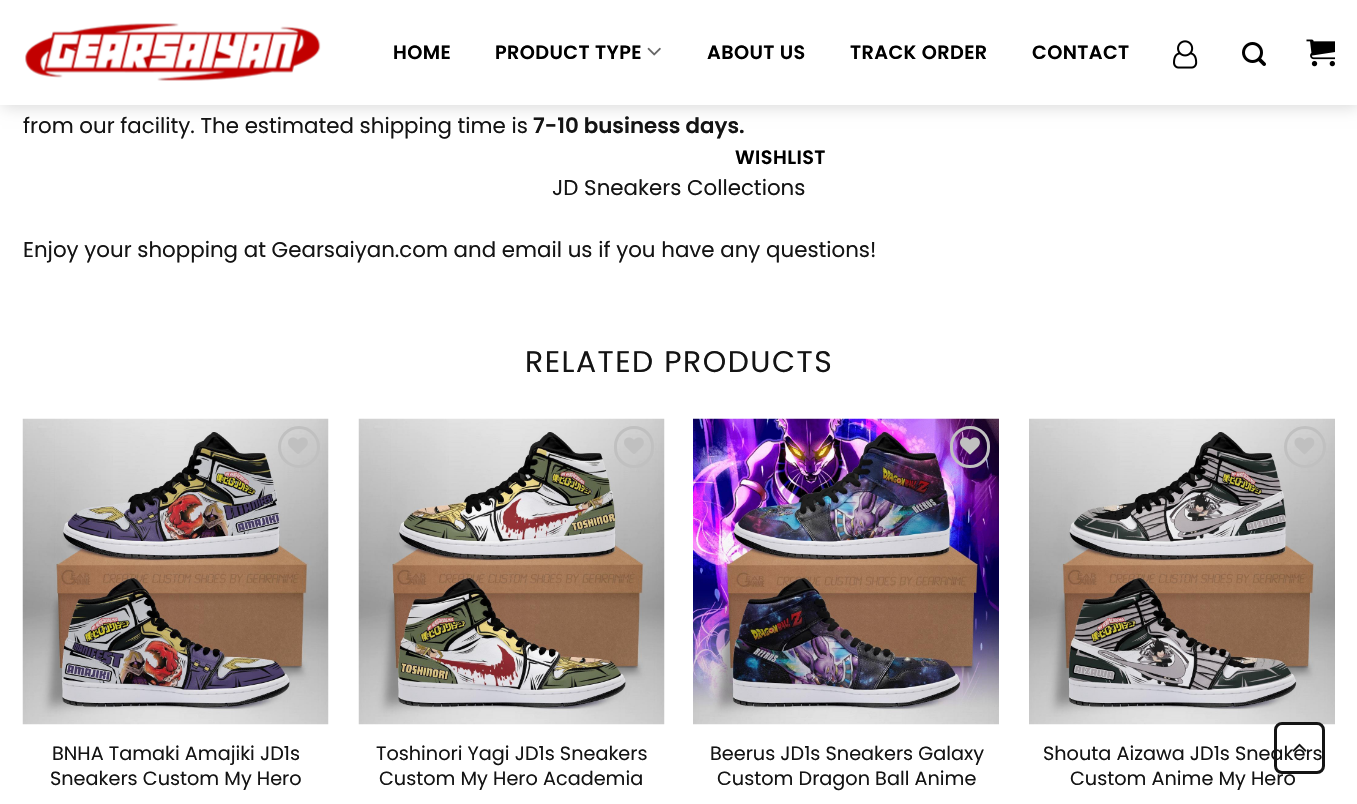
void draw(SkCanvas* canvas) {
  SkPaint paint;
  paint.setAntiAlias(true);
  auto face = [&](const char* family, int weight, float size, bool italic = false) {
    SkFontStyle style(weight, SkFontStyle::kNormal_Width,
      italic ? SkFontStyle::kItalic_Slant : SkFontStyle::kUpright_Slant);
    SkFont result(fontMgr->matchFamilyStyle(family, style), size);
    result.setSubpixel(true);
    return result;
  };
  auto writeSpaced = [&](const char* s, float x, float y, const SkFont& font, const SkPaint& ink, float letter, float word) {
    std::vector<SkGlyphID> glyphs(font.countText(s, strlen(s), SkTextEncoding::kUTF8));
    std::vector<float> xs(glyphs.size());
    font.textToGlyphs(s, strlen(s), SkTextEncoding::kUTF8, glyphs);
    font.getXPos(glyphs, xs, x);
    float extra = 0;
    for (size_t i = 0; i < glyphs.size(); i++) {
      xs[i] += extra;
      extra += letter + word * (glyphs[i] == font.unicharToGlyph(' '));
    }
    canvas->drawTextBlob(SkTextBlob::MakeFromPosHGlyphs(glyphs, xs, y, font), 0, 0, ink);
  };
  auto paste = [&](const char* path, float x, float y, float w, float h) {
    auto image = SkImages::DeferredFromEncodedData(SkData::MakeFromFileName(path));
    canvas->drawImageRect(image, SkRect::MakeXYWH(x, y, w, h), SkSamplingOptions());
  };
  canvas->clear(0xffffffff);
  paint.setColor(0x26000000);
  paint.setMaskFilter(SkMaskFilter::MakeBlur(kNormal_SkBlurStyle, 7.5f));
  canvas->drawRect(SkRect::MakeXYWH(2, 2, 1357, 105), paint);
  paint.setMaskFilter(nullptr);
  paint.setColor(0xffffffff);
  canvas->drawRect(SkRect::MakeXYWH(0, 0, 1357, 105), paint);
  paste("img/1.png", 25, 23, 296, 58);
  paste("img/2.png", 647, 47, 14, 9);
  paste("img/3.png", 1173, 40, 25, 29);
  paste("img/4.png", 1242, 42, 24, 24);
  paste("img/5.png", 1306, 39, 29, 28);
  paste("img/6.png", 22, 418, 307, 307);
  paint.setStroke(true);
  paint.setStrokeWidth(3);
  paint.setColor(0xffc0c0c0);
  canvas->drawCircle(299, 447, 19.5f, paint);
  paste("img/7.png", 288, 437, 20, 17);
  paste("img/8.png", 358, 418, 307, 307);
  canvas->drawRoundRect(SkRect::MakeXYWH(615.5f, 427.5f, 37, 39), 18.5f, 18.5f, paint);
  paste("img/7.png", 624, 437, 20, 17);
  paste("img/9.png", 693, 418, 306, 307);
  canvas->drawRoundRect(SkRect::MakeXYWH(951.5f, 427.5f, 37, 39), 18.5f, 18.5f, paint);
  paste("img/10.png", 960, 437, 20, 18);
  paste("img/11.png", 1029, 418, 306, 307);
  canvas->drawCircle(1305, 447, 19.5f, paint);
  paste("img/12.png", 1294, 437, 21, 18);
  paint.setColor(0xff141414);
  canvas->drawRoundRect(SkRect::MakeXYWH(1275.5f, 723.5f, 48, 49), 6.5f, 6.5f, paint);
  auto f0 = face("Poppins", 600, 19.25f);
  paint.setStroke(false);
  paint.setColor(0xff000000);
  {
    const struct { const char* s; float x, y; } items[] = {
      {"HOME", 393, 59},
      {"PRODUCT TYPE", 495, 59},
      {"ABOUT US", 707, 59},
      {"TRACK ORDER", 850, 59},
      {"CONTACT", 1032, 59},
      {"WISHLIST", 735, 164},
    };
    for (auto [s, x, y] : items) {
      writeSpaced(s, x, y, f0, paint, 0.4f, 0);
    }
  }
  auto f1 = face("Poppins", 400, 21.35f);
  paint.setColor(0xff141414);
  canvas->drawString("from our facility. The estimated shipping time is", 23, 133, f1, paint);
  auto f2 = face("Poppins", 600, 21.35f);
  canvas->drawString("7-10 business days.", 533, 133, f2, paint);
  canvas->drawString("JD Sneakers Collections", 552, 195, f1, paint);
  canvas->drawString("Enjoy your shopping at Gearsaiyan.com and email us if you have any questions!", 23, 257, f1, paint);
  auto f3 = face("Poppins", 400, 29.9f);
  writeSpaced("RELATED PRODUCTS", 525, 372, f3, paint, 1.5f, 0);
  auto f4 = face("Poppins", 400, 19.25f);
  {
    const struct { const char* s; float x, y; } items[] = {
      {"BNHA Tamaki Amajiki JD1s", 52, 760},
      {"Sneakers Custom My Hero", 50, 785},
      {"Toshinori Yagi JD1s Sneakers", 376, 760},
      {"Custom My Hero Academia", 379, 785},
      {"Beerus JD1s Sneakers Galaxy", 710, 760},
      {"Custom Dragon Ball Anime", 717, 785},
      {"Shouta Aizawa JD1s Sneakers", 1043, 760},
      {"Custom Anime My Hero", 1070, 785},
    };
    for (auto [s, x, y] : items) {
      canvas->drawString(s, x, y, f4, paint);
    }
  }
  paste("img/13.png", 1292, 743, 15, 9);
}
